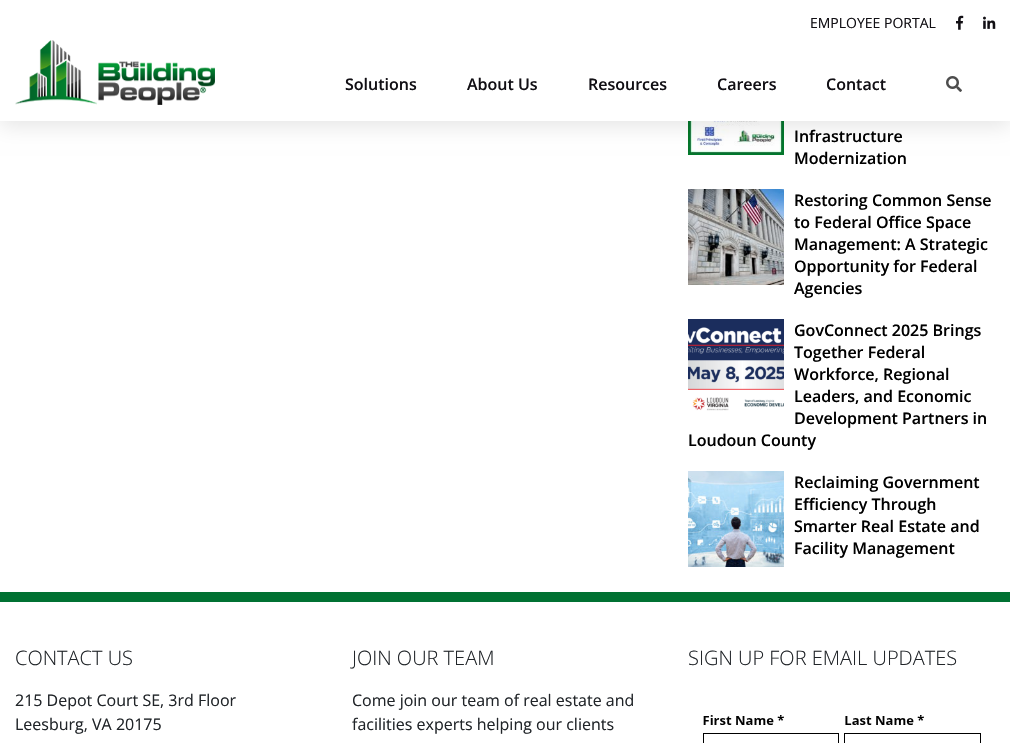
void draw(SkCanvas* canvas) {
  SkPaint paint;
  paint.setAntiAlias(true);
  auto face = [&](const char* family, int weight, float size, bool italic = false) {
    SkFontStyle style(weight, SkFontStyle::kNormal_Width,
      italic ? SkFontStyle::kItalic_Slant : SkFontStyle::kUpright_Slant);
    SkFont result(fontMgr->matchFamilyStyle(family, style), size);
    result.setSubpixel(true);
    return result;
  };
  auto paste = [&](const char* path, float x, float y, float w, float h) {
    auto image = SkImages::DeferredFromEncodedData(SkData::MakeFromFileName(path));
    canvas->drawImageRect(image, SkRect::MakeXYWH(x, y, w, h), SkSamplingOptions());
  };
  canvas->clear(0xffffffff);
  paste("img/5.png", 688, 121, 96, 34);
  paint.setColor(0x1a000000);
  paint.setMaskFilter(SkMaskFilter::MakeBlur(kNormal_SkBlurStyle, 10));
  canvas->drawRect(SkRect::MakeXYWH(0, 5, 1010, 121), paint);
  paint.setMaskFilter(nullptr);
  paint.setColor(0xffffffff);
  canvas->drawRect(SkRect::MakeXYWH(0, 0, 1010, 121), paint);
  paste("img/1.png", 15, 40, 200, 65);
  paste("img/2.png", 956, 15, 8, 15);
  paste("img/3.png", 983, 16, 13, 13);
  paste("img/4.png", 946, 76, 16, 16);
  paste("img/6.png", 688, 189, 96, 96);
  paste("img/7.png", 688, 319, 96, 92);
  paste("img/8.png", 688, 471, 96, 96);
  paint.setColor(0xff007132);
  canvas->drawRect(SkRect::MakeXYWH(0, 592, 1010, 10), paint);
  paste("img/9.png", 703, 715, 278, 28);
  auto f0 = face("Open Sans", 400, 14);
  paint.setColor(0xff110f14);
  canvas->drawString("EMPLOYEE PORTAL", 810, 28, f0, paint);
  auto f1 = face("Open Sans", 600, 16);
  {
    const struct { const char* s; float x, y; } items[] = {
      {"Solutions", 345, 90},
      {"About Us", 467, 90},
      {"Resources", 588, 90},
      {"Careers", 717, 90},
      {"Contact", 826, 90},
    };
    for (auto [s, x, y] : items) {
      canvas->drawString(s, x, y, f1, paint);
    }
  }
  paint.setColor(0xff000000);
  {
    const struct { const char* s; float x, y; } items[] = {
      {"Infrastructure", 794, 142},
      {"Modernization", 794, 164},
      {"Restoring Common Sense", 794, 206},
      {"to Federal Office Space", 794, 228},
      {"Management: A Strategic", 794, 250},
      {"Opportunity for Federal", 794, 272},
      {"Agencies", 794, 294},
      {"GovConnect 2025 Brings", 794, 336},
      {"Together Federal", 794, 358},
      {"Workforce, Regional", 794, 380},
      {"Leaders, and Economic", 794, 402},
      {"Development Partners in", 794, 424},
      {"Loudoun County", 688, 446},
      {"Reclaiming Government", 794, 488},
      {"Efficiency Through", 794, 510},
      {"Smarter Real Estate and", 794, 532},
      {"Facility Management", 794, 554},
    };
    for (auto [s, x, y] : items) {
      canvas->drawString(s, x, y, f1, paint);
    }
  }
  auto f2 = face("Open Sans", 300, 20);
  paint.setColor(0xff212529);
  canvas->drawString("CONTACT US", 15, 665, f2, paint);
  auto f3 = face("Open Sans", 400, 16);
  canvas->drawString("215 Depot Court SE, 3rd Floor", 15, 706, f3, paint);
  canvas->drawString("Leesburg, VA 20175", 15, 730, f3, paint);
  canvas->drawString("JOIN OUR TEAM", 352, 665, f2, paint);
  canvas->drawString("Come join our team of real estate and", 352, 706, f3, paint);
  canvas->drawString("facilities experts helping our clients", 352, 730, f3, paint);
  canvas->drawString("SIGN UP FOR EMAIL UPDATES", 688, 665, f2, paint);
}
